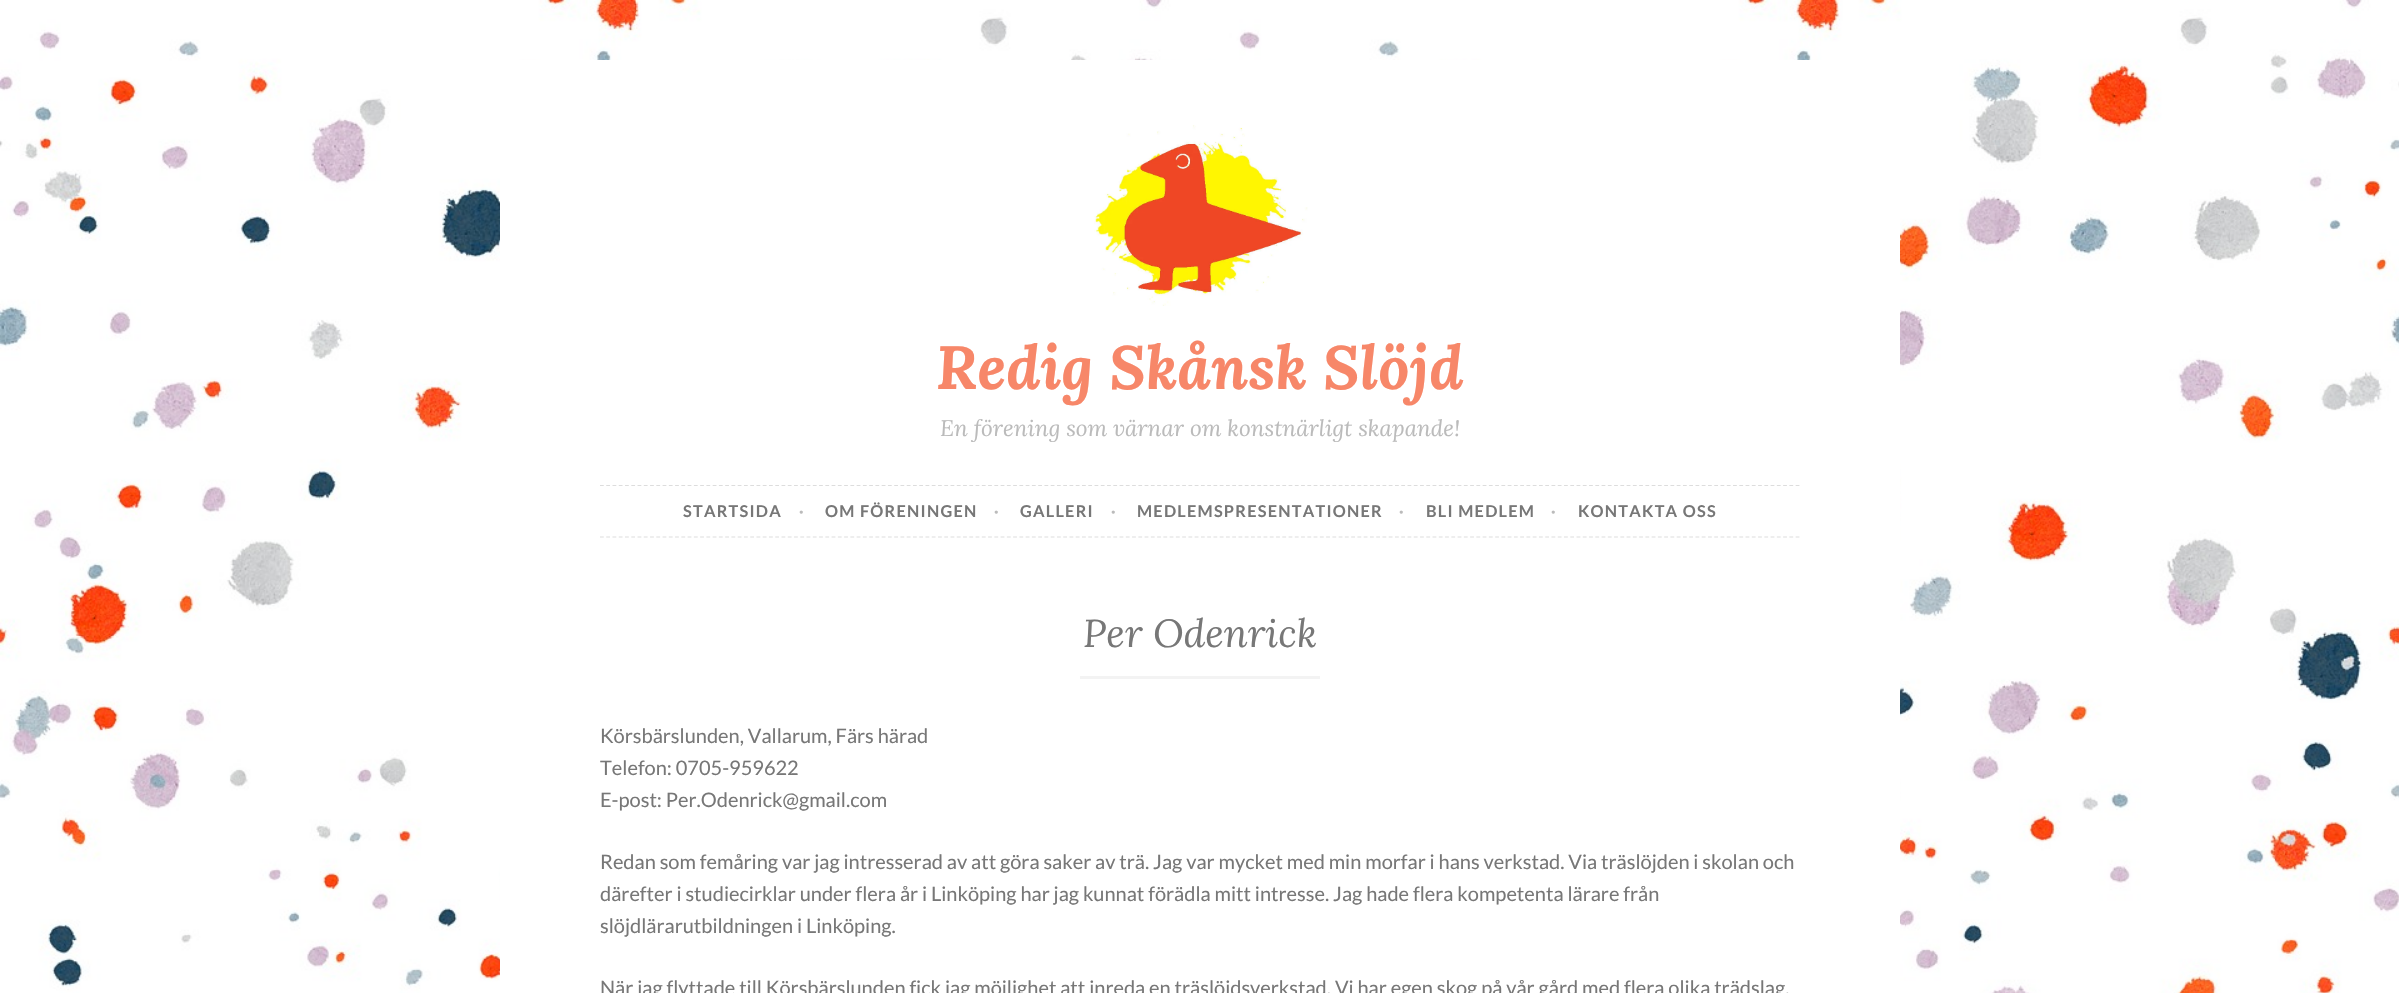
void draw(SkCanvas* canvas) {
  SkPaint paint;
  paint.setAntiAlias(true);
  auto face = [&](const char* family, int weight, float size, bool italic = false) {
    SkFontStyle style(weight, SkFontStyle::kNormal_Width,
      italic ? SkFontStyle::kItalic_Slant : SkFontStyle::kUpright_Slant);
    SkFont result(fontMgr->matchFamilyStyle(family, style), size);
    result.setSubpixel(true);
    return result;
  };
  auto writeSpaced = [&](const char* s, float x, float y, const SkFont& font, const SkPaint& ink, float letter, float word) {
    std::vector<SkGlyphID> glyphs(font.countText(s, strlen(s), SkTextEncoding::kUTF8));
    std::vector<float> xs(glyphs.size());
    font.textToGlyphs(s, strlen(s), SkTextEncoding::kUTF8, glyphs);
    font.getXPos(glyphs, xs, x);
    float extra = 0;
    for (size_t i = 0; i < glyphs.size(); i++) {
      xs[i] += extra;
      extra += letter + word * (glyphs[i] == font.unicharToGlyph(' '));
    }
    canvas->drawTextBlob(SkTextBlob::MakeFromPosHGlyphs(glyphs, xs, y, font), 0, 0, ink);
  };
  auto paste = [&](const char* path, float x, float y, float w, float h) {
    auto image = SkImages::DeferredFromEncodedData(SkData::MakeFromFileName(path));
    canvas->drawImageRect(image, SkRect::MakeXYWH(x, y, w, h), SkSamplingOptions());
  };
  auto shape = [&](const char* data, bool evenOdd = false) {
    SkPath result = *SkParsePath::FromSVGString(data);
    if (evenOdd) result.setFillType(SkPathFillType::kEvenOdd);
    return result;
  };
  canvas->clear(0xffffffff);
  paste("img/1.png", 0, 0, 2399, 993);
  paint.setColor(0xffffffff);
  canvas->drawRect(SkRect::MakeXYWH(500, 60, 1400, 933), paint);
  paste("img/2.png", 1094, 125, 214, 181);
  paint.setStroke(true);
  paint.setStrokeWidth(1.2f);
  paint.setColor(0xffdddddd);
  paint.setPathEffect(SkDashPathEffect::Make({{3.75f, 2.51f}}, 0));
  canvas->drawPath(shape("M600 485.5H1800"), paint);
  paint.setPathEffect(nullptr);
  paint.setPathEffect(SkDashPathEffect::Make({{3.75f, 2.51f}}, 0));
  canvas->drawPath(shape("M600 537H1800"), paint);
  paint.setPathEffect(nullptr);
  paint.setStroke(false);
  paint.setColor(0xfff3f3f3);
  canvas->drawRect(SkRect::MakeXYWH(1080, 676, 240, 3), paint);
  auto f0 = face("Lora", 700, 61, true);
  paint.setColor(0xfff78769);
  canvas->drawString("Redig Skånsk Slöjd", 936, 389, f0, paint);
  auto f1 = face("Lora", 400, 22.5f, true);
  paint.setColor(0xffbbbbbb);
  canvas->drawString("En förening som värnar om konstnärligt skapande!", 940, 436, f1, paint);
  auto f2 = face("Lato", 700, 16.25f);
  paint.setColor(0xff777777);
  writeSpaced("STARTSIDA", 683, 517, f2, paint, 1.25f, 0);
  paint.setColor(0xffbbbbbb);
  writeSpaced("·", 799, 517, f2, paint, 1.25f, 0);
  paint.setColor(0xff777777);
  writeSpaced("OM FÖRENINGEN", 825, 517, f2, paint, 1.25f, 0);
  paint.setColor(0xffbbbbbb);
  writeSpaced("·", 994, 517, f2, paint, 1.25f, 0);
  paint.setColor(0xff777777);
  writeSpaced("GALLERI", 1020, 517, f2, paint, 1.25f, 0);
  paint.setColor(0xffbbbbbb);
  writeSpaced("·", 1111, 517, f2, paint, 1.25f, 0);
  paint.setColor(0xff777777);
  writeSpaced("MEDLEMSPRESENTATIONER", 1137, 517, f2, paint, 1.25f, 0);
  paint.setColor(0xffbbbbbb);
  writeSpaced("·", 1399, 517, f2, paint, 1.25f, 0);
  paint.setColor(0xff777777);
  writeSpaced("BLI MEDLEM", 1426, 517, f2, paint, 1.25f, 0);
  paint.setColor(0xffbbbbbb);
  writeSpaced("·", 1551, 517, f2, paint, 1.25f, 0);
  paint.setColor(0xff777777);
  writeSpaced("KONTAKTA OSS", 1578, 517, f2, paint, 1.25f, 0);
  auto f3 = face("Lora", 400, 39, true);
  canvas->drawString("Per Odenrick", 1083, 647, f3, paint);
  auto f4 = face("Lato", 400, 20);
  {
    const struct { const char* s; float x, y; } items[] = {
      {"Körsbärslunden, Vallarum, Färs härad", 600, 743},
      {"Telefon: 0705-959622", 600, 775},
      {"E-post: Per.Odenrick@gmail.com", 600, 807},
      {"Redan som femåring var jag intresserad av att göra saker av trä. Jag var mycket med min morfar i hans verkstad. Via träslöjden i skolan och", 600, 869},
      {"därefter i studiecirklar under flera år i Linköping har jag kunnat förädla mitt intresse. Jag hade flera kompetenta lärare från", 600, 901},
      {"slöjdlärarutbildningen i Linköping.", 600, 933},
      {"När jag flyttade till Körsbärslunden fick jag möjlighet att inreda en träslöjdsverkstad. Vi har egen skog på vår gård med flera olika trädslag.", 600, 995},
    };
    for (auto [s, x, y] : items) {
      canvas->drawString(s, x, y, f4, paint);
    }
  }
}
